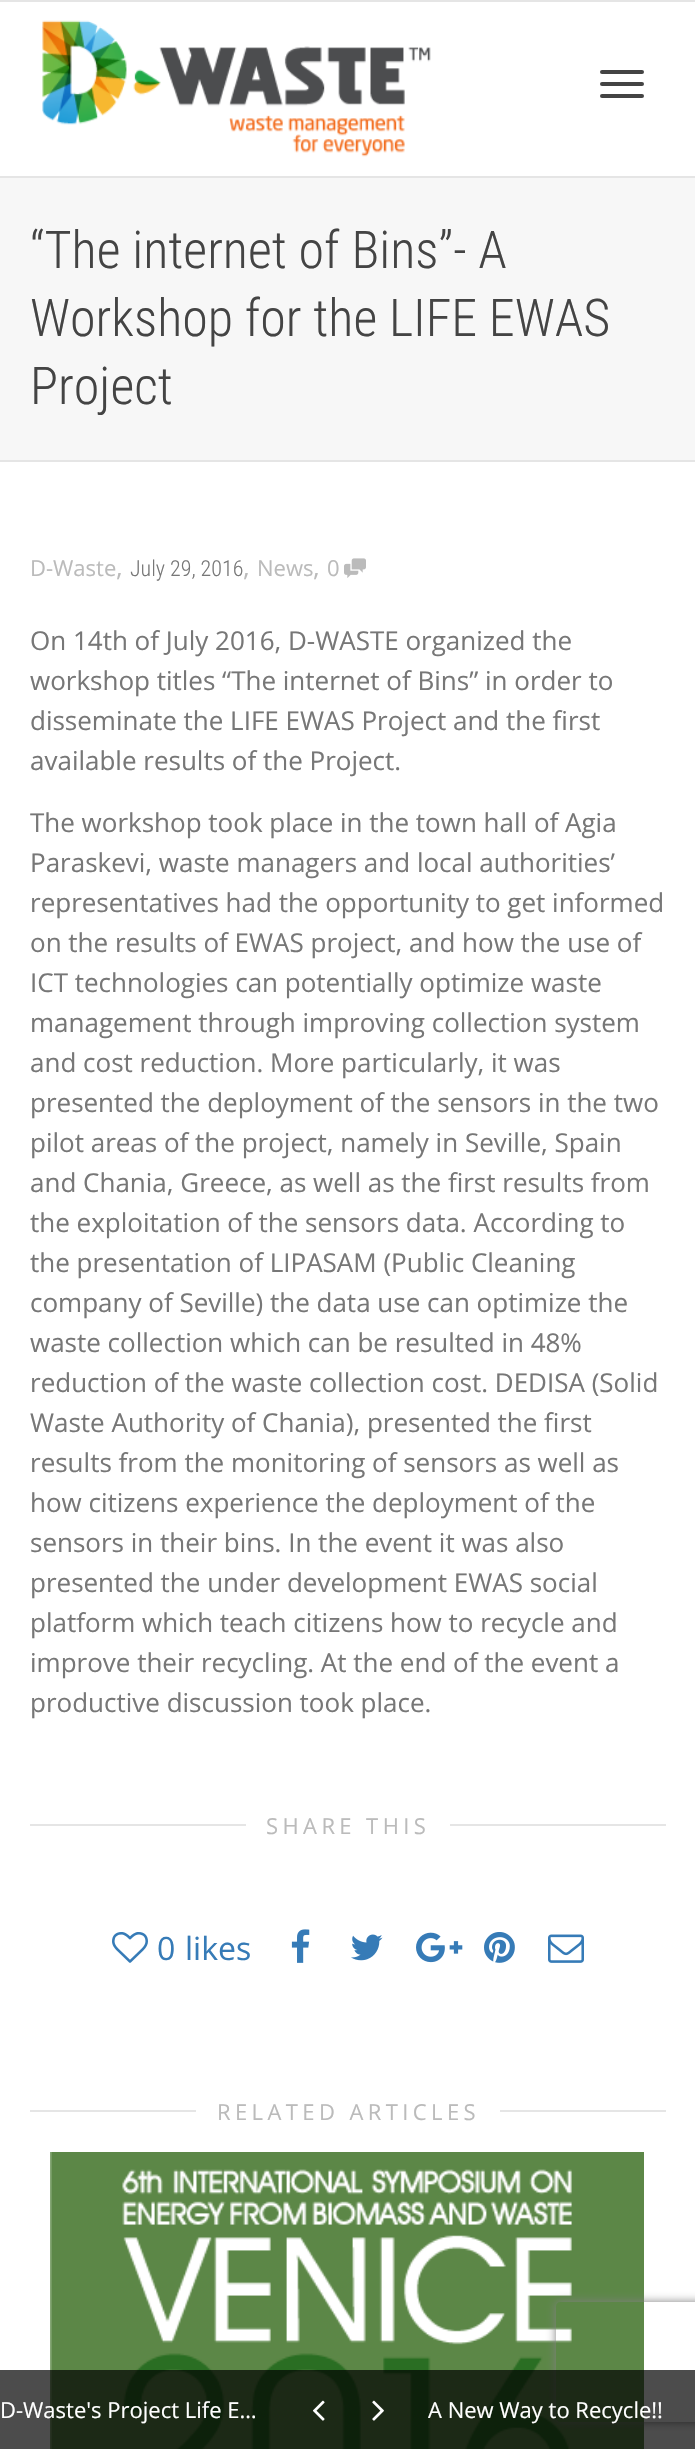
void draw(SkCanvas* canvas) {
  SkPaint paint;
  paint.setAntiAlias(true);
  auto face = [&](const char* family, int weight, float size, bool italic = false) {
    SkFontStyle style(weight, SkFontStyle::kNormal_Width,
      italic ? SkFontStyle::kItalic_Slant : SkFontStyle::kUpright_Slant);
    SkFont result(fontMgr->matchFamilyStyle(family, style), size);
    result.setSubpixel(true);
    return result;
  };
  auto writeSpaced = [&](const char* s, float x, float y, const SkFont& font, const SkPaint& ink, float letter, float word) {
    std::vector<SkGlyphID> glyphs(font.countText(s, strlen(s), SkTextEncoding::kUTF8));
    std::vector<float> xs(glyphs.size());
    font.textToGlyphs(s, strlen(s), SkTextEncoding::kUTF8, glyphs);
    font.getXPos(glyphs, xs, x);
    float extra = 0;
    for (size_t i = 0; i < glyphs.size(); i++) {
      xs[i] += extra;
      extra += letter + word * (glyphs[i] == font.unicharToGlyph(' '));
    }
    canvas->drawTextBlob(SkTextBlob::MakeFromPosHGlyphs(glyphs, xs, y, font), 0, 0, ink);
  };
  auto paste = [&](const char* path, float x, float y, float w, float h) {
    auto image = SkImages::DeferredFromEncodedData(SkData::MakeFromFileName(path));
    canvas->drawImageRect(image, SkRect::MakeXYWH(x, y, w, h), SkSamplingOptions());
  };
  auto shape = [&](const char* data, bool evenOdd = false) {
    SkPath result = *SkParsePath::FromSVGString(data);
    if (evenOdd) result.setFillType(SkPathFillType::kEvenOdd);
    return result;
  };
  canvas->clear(0xffffffff);
  paint.setColor(0xffe5e5e5);
  canvas->drawRect(SkRect::MakeXYWH(0, 0, 695, 2), paint);
  canvas->drawRect(SkRect::MakeXYWH(0, 176, 695, 2), paint);
  paste("img/1.png", 42, 20, 389, 137);
  paint.setColor(0xff444444);
  canvas->drawRoundRect(SkRect::MakeXYWH(600, 70, 44, 4), 2, 2, paint);
  canvas->drawRoundRect(SkRect::MakeXYWH(600, 82, 44, 4), 2, 2, paint);
  canvas->drawRoundRect(SkRect::MakeXYWH(600, 94, 44, 4), 2, 2, paint);
  paint.setColor(0xfff7f7f7);
  canvas->drawRect(SkRect::MakeXYWH(0, 178, 695, 282), paint);
  paint.setColor(0xffe5e5e5);
  canvas->drawRect(SkRect::MakeXYWH(0, 460, 695, 2), paint);
  paste("img/2.png", 344, 558, 22, 20);
  canvas->drawRect(SkRect::MakeXYWH(30, 1824, 636, 2), paint);
  paint.setColor(0xffffffff);
  canvas->drawRoundRect(SkRect::MakeXYWH(246, 1806, 204, 38), 4, 4, paint);
  paste("img/3.png", 112, 1932, 36, 31);
  paste("img/4.png", 291, 1929, 19, 34);
  paste("img/5.png", 351, 1934, 32, 27);
  paste("img/6.png", 416, 1932, 47, 31);
  paste("img/7.png", 484, 1932, 31, 31);
  paste("img/8.png", 548, 1934, 36, 29);
  paint.setColor(0xffe5e5e5);
  canvas->drawRect(SkRect::MakeXYWH(30, 2110, 636, 2), paint);
  paint.setColor(0xffffffff);
  canvas->drawRoundRect(SkRect::MakeXYWH(196, 2092, 304, 38), 4, 4, paint);
  paste("img/9.png", 50, 2152, 594, 297);
  canvas->save();
  canvas->clipPath(shape("M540 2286H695V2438H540ZM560 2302H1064C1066 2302 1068 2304 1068 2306V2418C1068 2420 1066 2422 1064 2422H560C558 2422 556 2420 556 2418V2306C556 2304 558 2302 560 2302Z", true), true);
  paint.setColor(0xff808080);
  paint.setMaskFilter(SkMaskFilter::MakeBlur(kNormal_SkBlurStyle, 5));
  canvas->drawRoundRect(SkRect::MakeXYWH(556, 2302, 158, 120), 4, 4, paint);
  paint.setMaskFilter(nullptr);
  canvas->restore();
  paint.setColor(0xb3000000);
  canvas->drawRect(SkRect::MakeXYWH(0, 2370, 695, 79), paint);
  paste("img/10.png", 312, 2400, 13, 21);
  paste("img/11.png", 372, 2400, 12, 21);
  auto f0 = face("Roboto Condensed", 300, 52);
  paint.setColor(0xff444444);
  {
    const struct { const char* s; float x, y; } items[] = {
      {"“The internet of Bins”- A", 30, 268},
      {"Workshop for the LIFE EWAS", 30, 336},
      {"Project", 30, 404},
    };
    for (auto [s, x, y] : items) {
      canvas->drawString(s, x, y, f0, paint);
    }
  }
  auto f1 = face("Open Sans", 400, 22);
  paint.setColor(0xffbbbbbb);
  canvas->drawString("D-Waste", 30, 576, f1, paint);
  auto f2 = face("Open Sans", 400, 26);
  canvas->drawString(",", 116, 576, f2, paint);
  auto f3 = face("Roboto Condensed", 300, 22);
  paint.setColor(0xff777777);
  canvas->drawString("July 29, 2016", 130, 576, f3, paint);
  paint.setColor(0xffbbbbbb);
  canvas->drawString(",", 243, 576, f2, paint);
  canvas->drawString("News", 257, 576, f1, paint);
  canvas->drawString(",", 313, 576, f2, paint);
  canvas->drawString("0", 327, 576, f1, paint);
  paint.setColor(0xff777777);
  {
    const struct { const char* s; float x, y; } items[] = {
      {"On 14th of July 2016, D-WASTE organized the", 30, 650},
      {"workshop titles “The internet of Bins” in order to", 30, 690},
      {"disseminate the LIFE EWAS Project and the first", 30, 730},
      {"available results of the Project.", 30, 770},
      {"The workshop took place in the town hall of Agia", 30, 832},
      {"Paraskevi, waste managers and local authorities’", 30, 872},
      {"representatives had the opportunity to get informed", 30, 912},
      {"on the results of EWAS project, and how the use of", 30, 952},
      {"ICT technologies can potentially optimize waste", 30, 992},
      {"management through improving collection system", 30, 1032},
      {"and cost reduction. More particularly, it was", 30, 1072},
      {"presented the deployment of the sensors in the two", 30, 1112},
      {"pilot areas of the project, namely in Seville, Spain", 30, 1152},
      {"and Chania, Greece, as well as the first results from", 30, 1192},
      {"the exploitation of the sensors data. According to", 30, 1232},
      {"the presentation of LIPASAM (Public Cleaning", 30, 1272},
      {"company of Seville) the data use can optimize the", 30, 1312},
      {"waste collection which can be resulted in 48%", 30, 1352},
      {"reduction of the waste collection cost. DEDISA (Solid", 30, 1392},
      {"Waste Authority of Chania), presented the first", 30, 1432},
      {"results from the monitoring of sensors as well as", 30, 1472},
      {"how citizens experience the deployment of the", 30, 1512},
      {"sensors in their bins. In the event it was also", 30, 1552},
      {"presented the under development EWAS social", 30, 1592},
      {"platform which teach citizens how to recycle and", 30, 1632},
      {"improve their recycling. At the end of the event a", 30, 1672},
      {"productive discussion took place.", 30, 1712},
    };
    for (auto [s, x, y] : items) {
      canvas->drawString(s, x, y, f2, paint);
    }
  }
  paint.setColor(0xffbbbbbb);
  writeSpaced("SHARE THIS", 266, 1834, f1, paint, 4.4f, 0);
  auto f4 = face("Open Sans", 400, 32);
  paint.setColor(0xff367bb7);
  canvas->drawString("0", 157, 1960, f4, paint);
  canvas->drawString("likes", 185, 1960, f4, paint);
  paint.setColor(0xffbbbbbb);
  writeSpaced("RELATED ARTICLES", 217, 2120, f1, paint, 4.4f, 0);
  paint.setColor(0xffffffff);
  canvas->drawString("D-Waste's Project Life E…", 0, 2418, f1, paint);
  canvas->drawString("A New Way to Recycle!!", 428, 2418, f1, paint);
}
